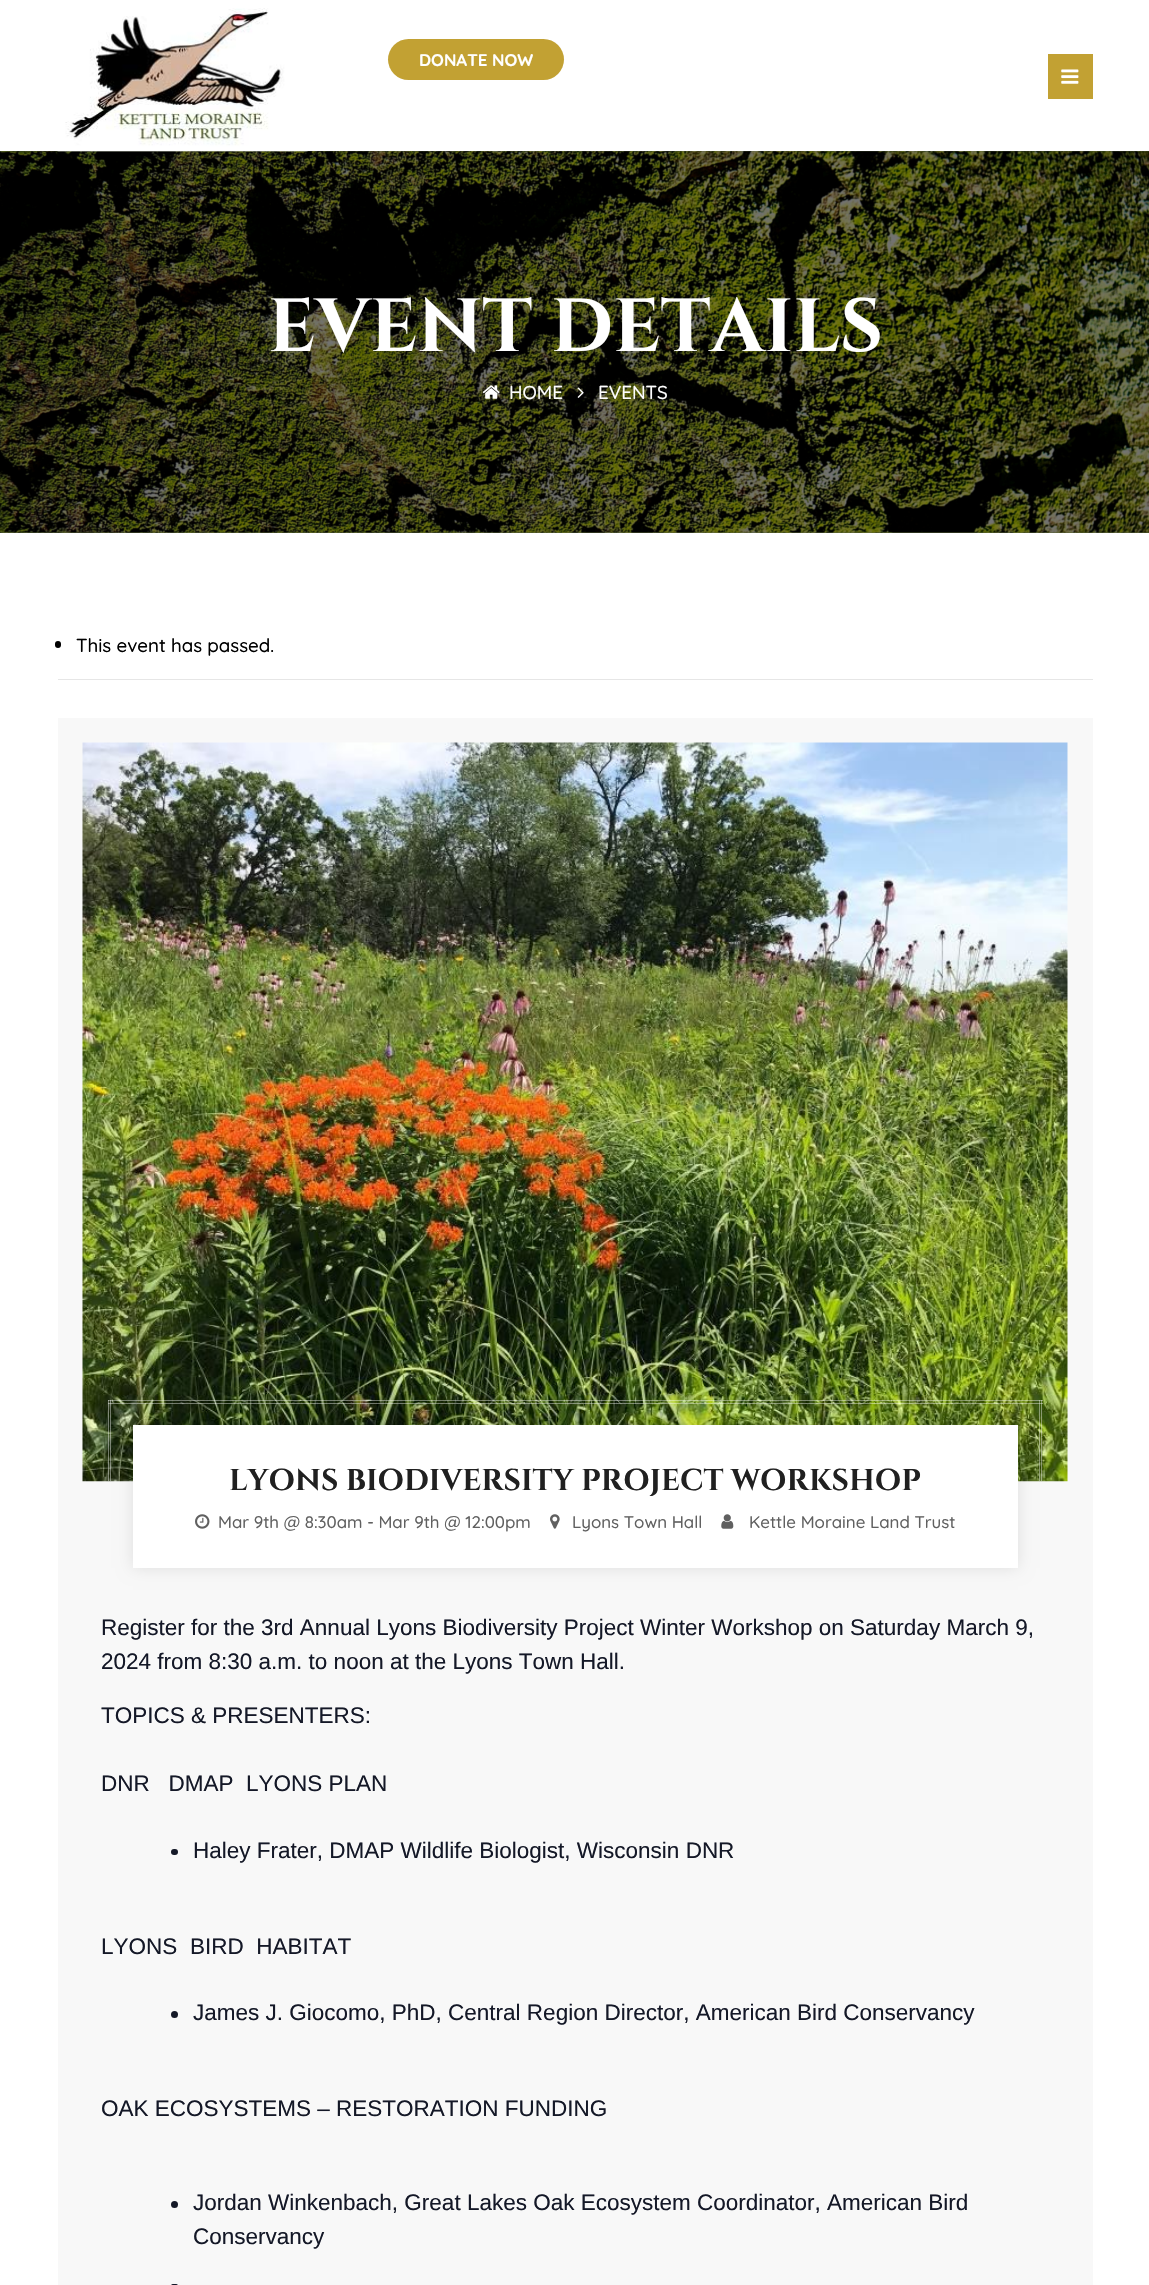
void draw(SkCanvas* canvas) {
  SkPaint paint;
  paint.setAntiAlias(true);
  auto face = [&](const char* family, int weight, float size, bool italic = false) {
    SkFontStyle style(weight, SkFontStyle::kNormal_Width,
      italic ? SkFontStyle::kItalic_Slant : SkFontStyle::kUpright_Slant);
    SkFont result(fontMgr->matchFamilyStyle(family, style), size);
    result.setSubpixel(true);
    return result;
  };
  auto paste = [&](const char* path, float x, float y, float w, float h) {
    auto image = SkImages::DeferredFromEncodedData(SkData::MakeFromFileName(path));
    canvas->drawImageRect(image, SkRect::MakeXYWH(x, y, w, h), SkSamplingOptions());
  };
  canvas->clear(0xffffffff);
  paint.setColor(0xff586439);
  canvas->drawRect(SkRect::MakeXYWH(0, 151, 1149, 382), paint);
  paste("img/3.png", 0, 151, 1149, 382);
  paste("img/1.png", 57, 8, 251, 144);
  paint.setColor(0xffc2a133);
  canvas->drawRoundRect(SkRect::MakeXYWH(388, 39, 176, 41), 20.5f, 20.5f, paint);
  canvas->drawRect(SkRect::MakeXYWH(1048, 54, 45, 45), paint);
  paste("img/2.png", 1061, 69, 18, 15);
  paste("img/4.png", 482, 385, 18, 14);
  paste("img/5.png", 577, 387, 7, 11);
  paint.setColor(0xffe6e6e6);
  canvas->drawRect(SkRect::MakeXYWH(58, 679, 1035, 1), paint);
  paint.setColor(0xff000000);
  canvas->drawRoundRect(SkRect::MakeXYWH(55, 641, 6, 7), 3, 3, paint);
  paint.setColor(0xfff8f8f8);
  canvas->drawRect(SkRect::MakeXYWH(58, 718, 1035, 1567), paint);
  paste("img/6.png", 82, 742, 986, 740);
  {
    const struct { float x, y, w, h; SkColor color; } items[] = {
      {108, 1400, 935, 1, 0x66ffffff},
      {108, 1403, 935, 1, 0x66ffffff},
      {1039, 1400, 1, 81, 0x66ffffff},
      {1041, 1400, 1, 81, 0x66ffffff},
      {108, 1400, 1, 81, 0x66ffffff},
      {110, 1400, 1, 81, 0x66ffffff},
    };
    for (auto [x, y, w, h, color] : items) {
      paint.setColor(color);
      canvas->drawRect(SkRect::MakeXYWH(x, y, w, h), paint);
    }
  }
  paint.setColor(0x1a000000);
  paint.setMaskFilter(SkMaskFilter::MakeBlur(kNormal_SkBlurStyle, 7.5f));
  canvas->drawRect(SkRect::MakeXYWH(133, 1425, 885, 143), paint);
  paint.setMaskFilter(nullptr);
  paint.setColor(0xffffffff);
  canvas->drawRect(SkRect::MakeXYWH(133, 1425, 885, 143), paint);
  paste("img/7.png", 195, 1514, 15, 15);
  paste("img/8.png", 550, 1514, 10, 15);
  paste("img/9.png", 721, 1514, 13, 15);
  paint.setColor(0xff141827);
  canvas->drawRoundRect(SkRect::MakeXYWH(171, 1849, 7, 6), 3, 3, paint);
  canvas->drawCircle(174.5f, 2014.5f, 3.5f, paint);
  canvas->drawCircle(174.5f, 2204.5f, 3.5f, paint);
  canvas->drawRoundRect(SkRect::MakeXYWH(171, 2284, 7, 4), 3, 3, paint);
  auto f0 = face("Quicksand", 700, 16.9f);
  paint.setColor(0xffffffff);
  canvas->drawString("DONATE NOW", 419, 66, f0, paint);
  auto f1 = face("Cinzel", 700, 75);
  canvas->drawString("EVENT DETAILS", 268, 351, f1, paint);
  auto f2 = face("Quicksand", 500, 18.75f);
  canvas->drawString("HOME", 509, 399, f2, paint);
  canvas->drawString("EVENTS", 598, 399, f2, paint);
  paint.setColor(0xff000000);
  canvas->drawString("This event has passed.", 76, 652, f2, paint);
  auto f3 = face("Cinzel", 700, 30);
  paint.setColor(0xff202020);
  canvas->drawString("LYONS BIODIVERSITY PROJECT WORKSHOP", 229, 1490, f3, paint);
  auto f4 = face("Quicksand", 500, 16.9f);
  paint.setColor(0xff606060);
  {
    const struct { const char* s; float x, y; } items[] = {
      {"Mar 9th @ 8:30am - Mar 9th @ 12:00pm", 218, 1528},
      {"Lyons Town Hall", 572, 1528},
      {"Kettle Moraine Land Trust", 749, 1528},
    };
    for (auto [s, x, y] : items) {
      canvas->drawString(s, x, y, f4, paint);
    }
  }
  auto f5 = face("Liberation Sans", 400, 22.5f);
  paint.setColor(0xff141827);
  {
    const struct { const char* s; float x, y; } items[] = {
      {"Register for the 3rd Annual Lyons Biodiversity Project Winter Workshop on Saturday March 9,", 101, 1635},
      {"2024 from 8:30 a.m. to noon at the Lyons Town Hall.", 101, 1669},
      {"TOPICS & PRESENTERS:", 101, 1723},
      {"DNR   DMAP", 101, 1791},
      {"LYONS PLAN", 246, 1791},
      {"Haley Frater, DMAP Wildlife Biologist, Wisconsin DNR", 193, 1858},
      {"LYONS", 101, 1954},
      {"BIRD  HABITAT", 190, 1954},
      {"James J. Giocomo, PhD, Central Region Director, American Bird Conservancy", 193, 2020},
      {"OAK ECOSYSTEMS – RESTORATION FUNDING", 101, 2116},
      {"Jordan Winkenbach, Great Lakes Oak Ecosystem Coordinator, American Bird", 193, 2210},
      {"Conservancy", 193, 2244},
    };
    for (auto [s, x, y] : items) {
      canvas->drawString(s, x, y, f5, paint);
    }
  }
}
